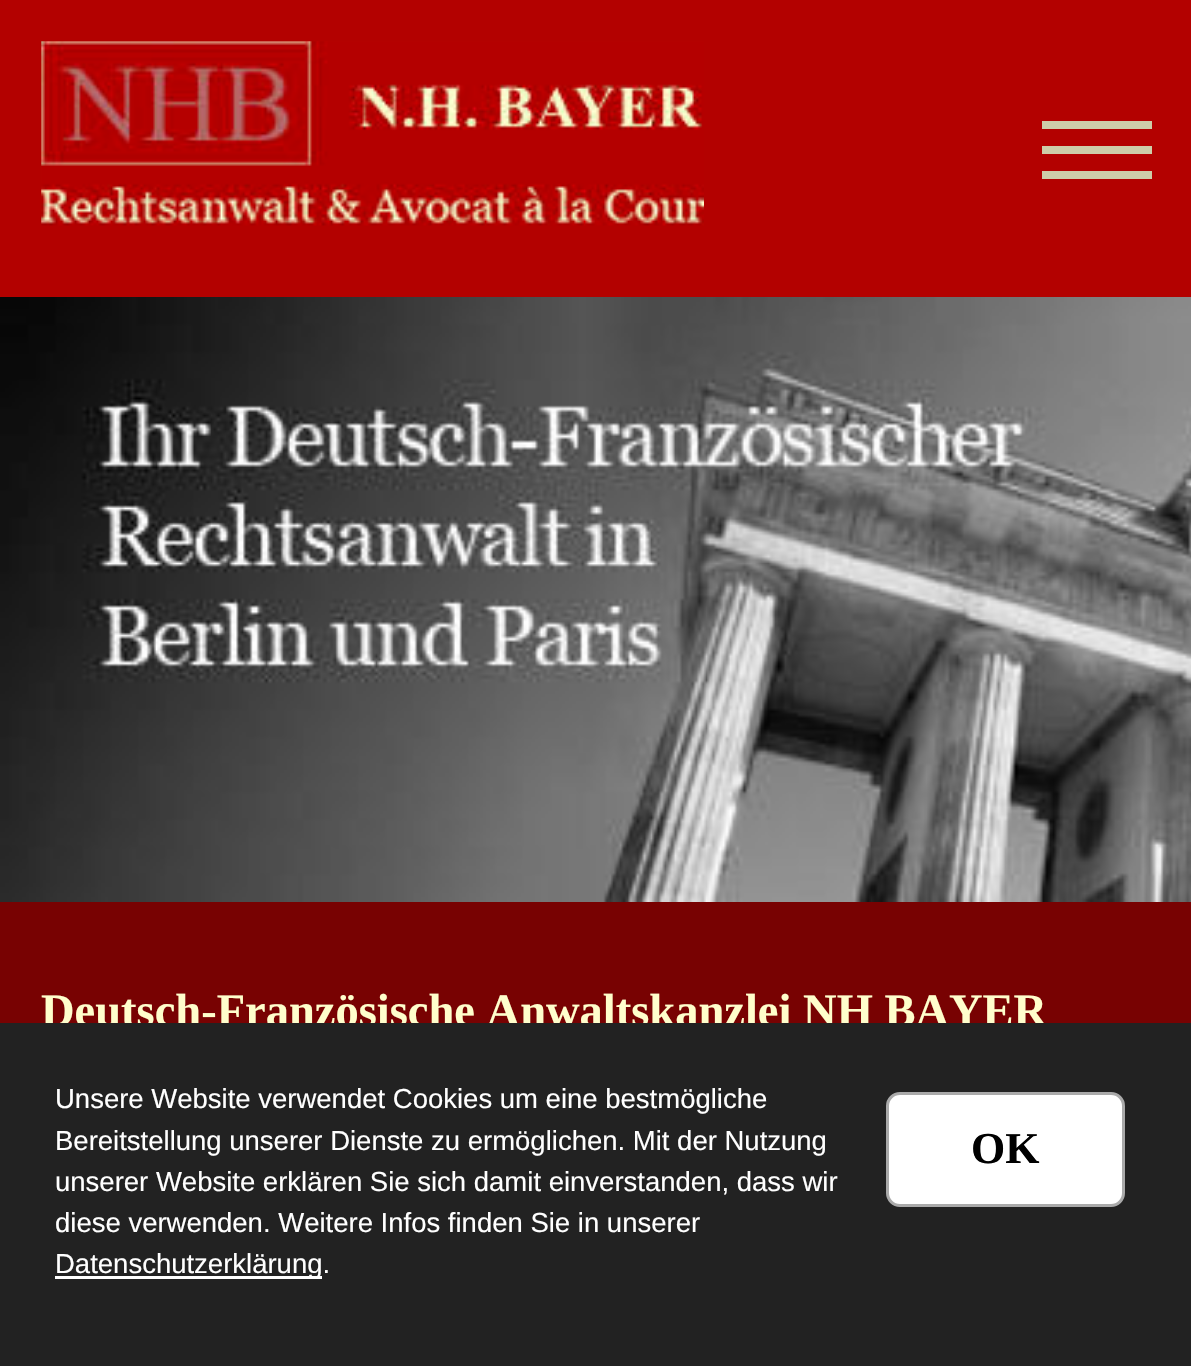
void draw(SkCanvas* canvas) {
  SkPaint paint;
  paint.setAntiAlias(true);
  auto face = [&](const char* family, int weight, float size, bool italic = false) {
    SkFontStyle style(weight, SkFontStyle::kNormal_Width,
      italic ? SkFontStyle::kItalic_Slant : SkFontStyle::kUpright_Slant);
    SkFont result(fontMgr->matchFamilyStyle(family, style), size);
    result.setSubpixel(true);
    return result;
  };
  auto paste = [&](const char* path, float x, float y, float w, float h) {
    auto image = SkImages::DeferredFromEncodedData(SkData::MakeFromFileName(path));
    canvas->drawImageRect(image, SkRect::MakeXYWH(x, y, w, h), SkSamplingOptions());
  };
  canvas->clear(0xffffffff);
  paint.setColor(0xffb30100);
  canvas->drawRect(SkRect::MakeXYWH(0, 0, 1191, 297), paint);
  paste("img/1.png", 41, 41, 663, 185);
  {
    const struct { float x, y, w, h; SkColor color; } items[] = {
      {1042, 146, 110, 8, 0xffcecda9},
      {1042, 121, 110, 8, 0xffcecda9},
      {1042, 171, 110, 8, 0xffcecda9},
    };
    for (auto [x, y, w, h, color] : items) {
      paint.setColor(color);
      canvas->drawRect(SkRect::MakeXYWH(x, y, w, h), paint);
    }
  }
  paste("img/2.png", 0, 297, 1191, 605);
  paint.setColor(0xff780202);
  canvas->drawRect(SkRect::MakeXYWH(0, 902, 1191, 121), paint);
  auto f0 = face("Liberation Serif", 700, 46.5f);
  paint.setColor(0xfffffecc);
  canvas->drawString("Deutsch-Französische Anwaltskanzlei NH BAYER", 41, 1026, f0, paint);
  paint.setColor(0xff222222);
  canvas->drawRect(SkRect::MakeXYWH(0, 1023, 1191, 343), paint);
  auto f1 = face("Liberation Sans", 400, 27.5f);
  paint.setColor(0xffffffff);
  {
    const struct { const char* s; float x, y; } items[] = {
      {"Unsere Website verwendet Cookies um eine bestmögliche", 55, 1108},
      {"Bereitstellung unserer Dienste zu ermöglichen. Mit der Nutzung", 55, 1150},
      {"unserer Website erklären Sie sich damit einverstanden, dass wir", 55, 1191},
      {"diese verwenden. Weitere Infos finden Sie in unserer", 55, 1232},
    };
    for (auto [s, x, y] : items) {
      canvas->drawString(s, x, y, f1, paint);
    }
  }
  canvas->drawRect(SkRect::MakeXYWH(55, 1276, 267, 3), paint);
  canvas->drawString("Datenschutzerklärung.", 55, 1273, f1, paint);
  canvas->drawRoundRect(SkRect::MakeXYWH(887.5f, 1093.5f, 236, 112), 12.5f, 12.5f, paint);
  paint.setStroke(true);
  paint.setStrokeWidth(3);
  paint.setColor(0xffaaaaaa);
  canvas->drawRoundRect(SkRect::MakeXYWH(887.5f, 1093.5f, 236, 112), 12.5f, 12.5f, paint);
  auto f2 = face("Liberation Serif", 700, 44);
  paint.setStroke(false);
  paint.setColor(0xff000000);
  canvas->drawString("OK", 971, 1163, f2, paint);
}
